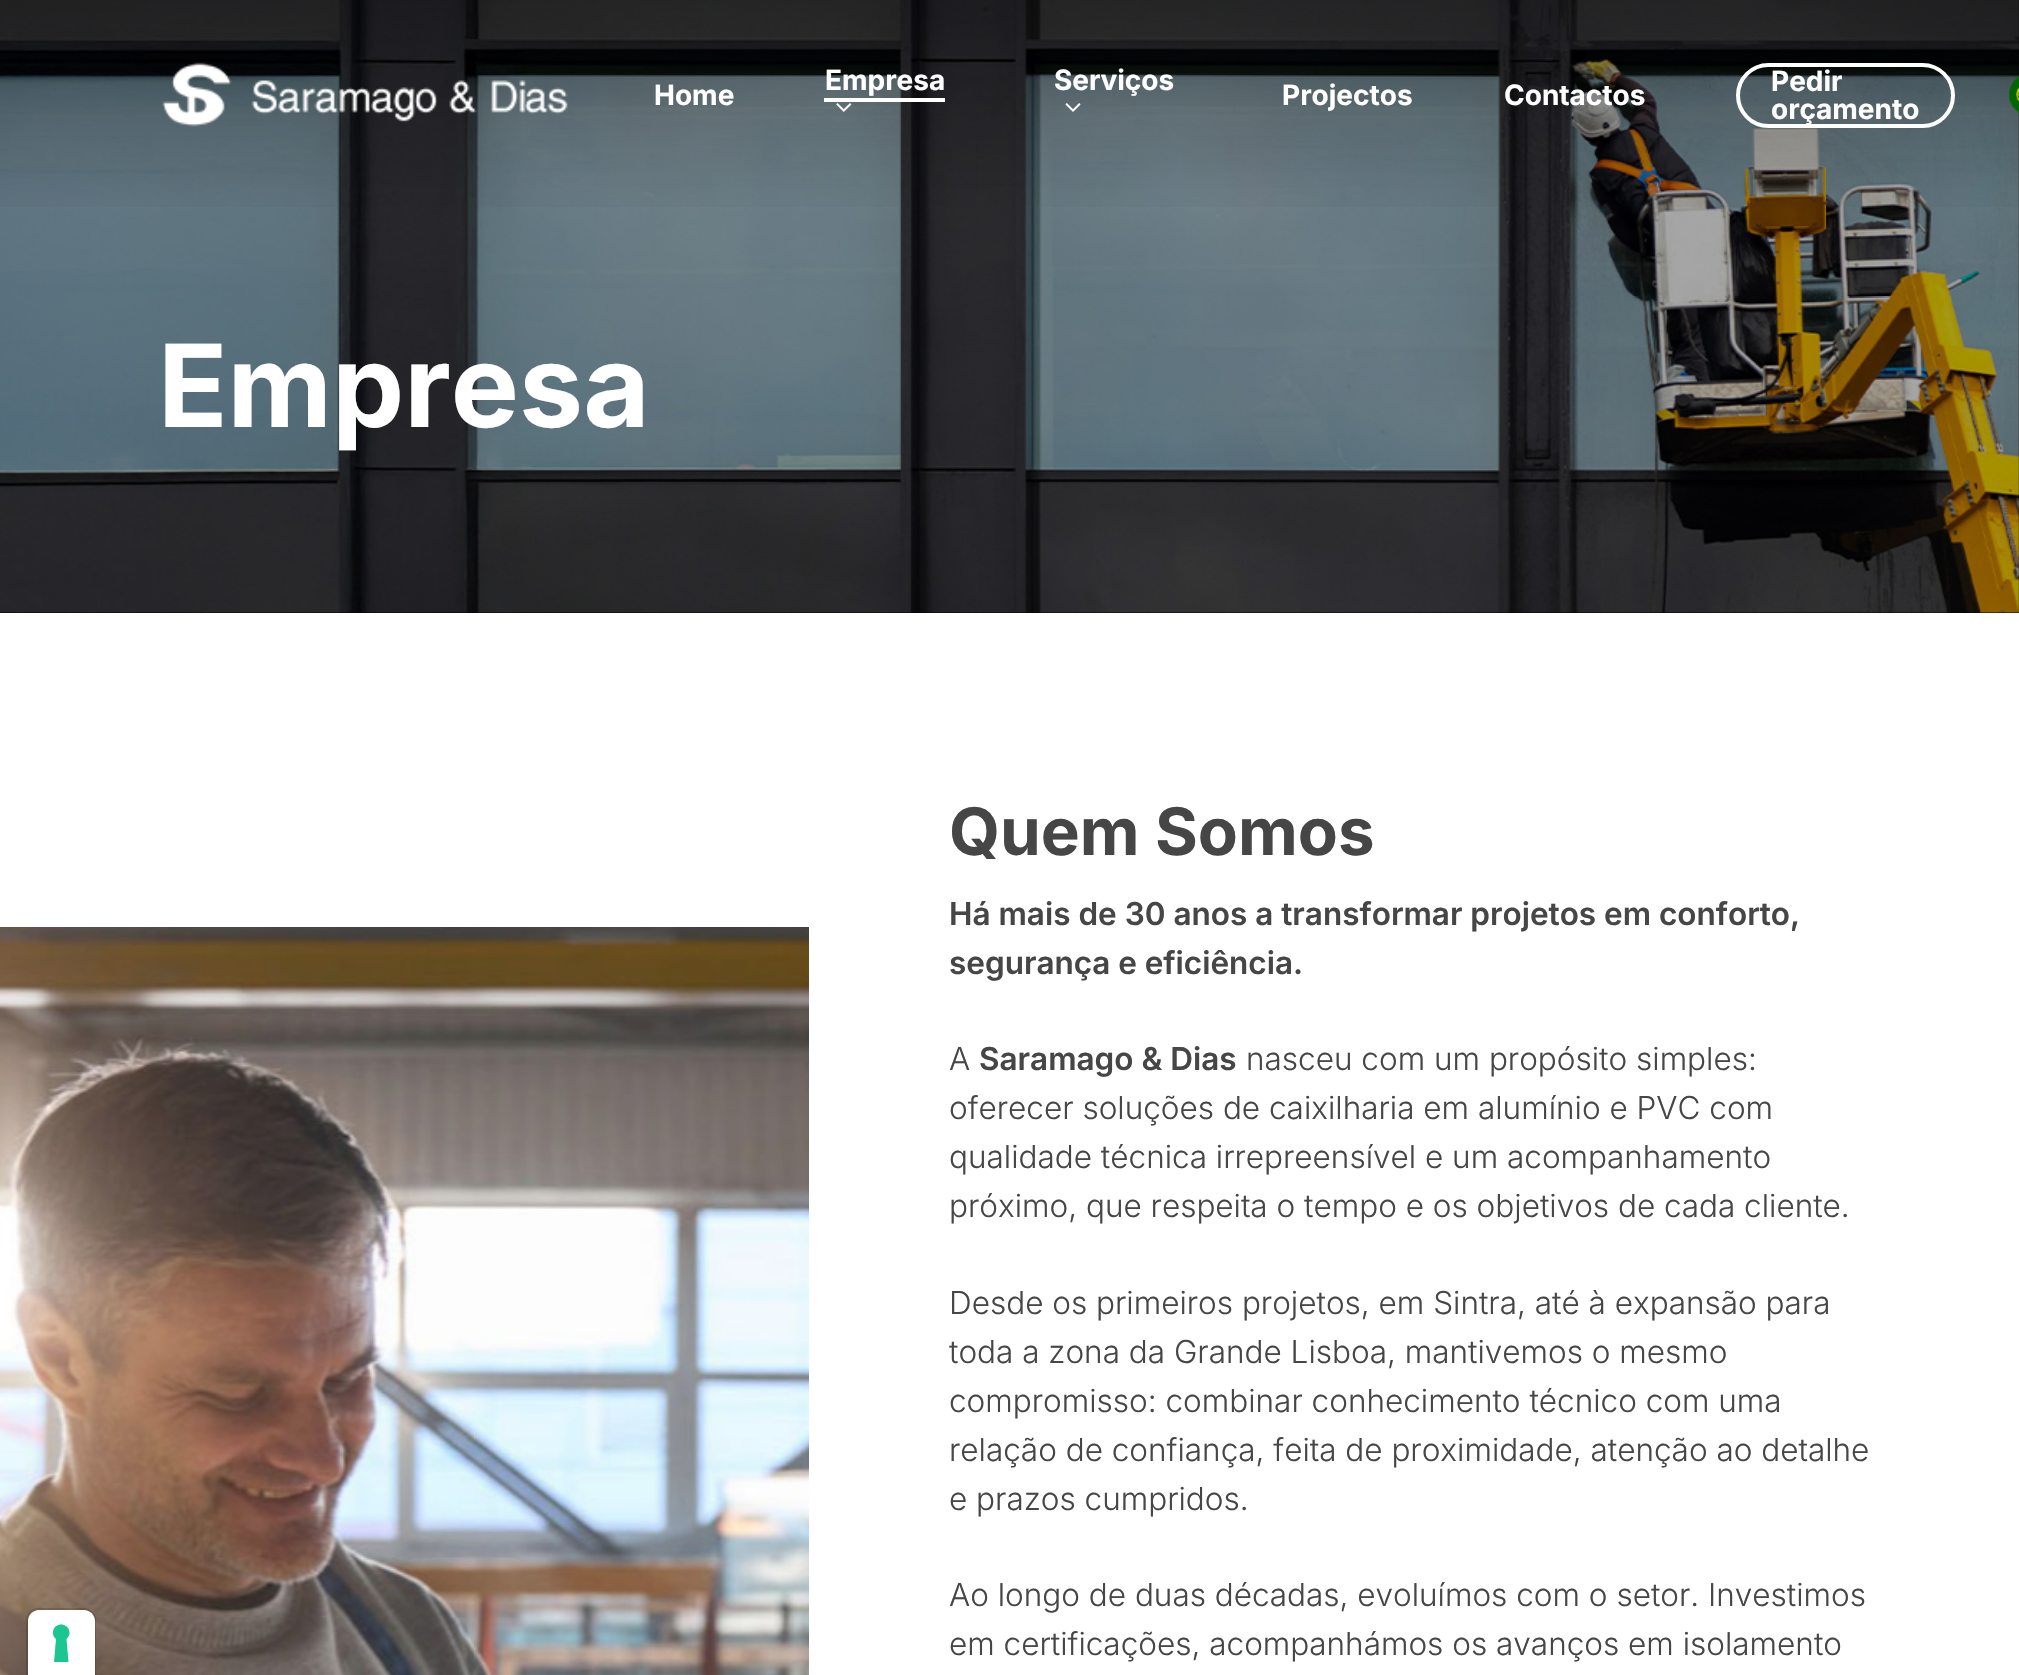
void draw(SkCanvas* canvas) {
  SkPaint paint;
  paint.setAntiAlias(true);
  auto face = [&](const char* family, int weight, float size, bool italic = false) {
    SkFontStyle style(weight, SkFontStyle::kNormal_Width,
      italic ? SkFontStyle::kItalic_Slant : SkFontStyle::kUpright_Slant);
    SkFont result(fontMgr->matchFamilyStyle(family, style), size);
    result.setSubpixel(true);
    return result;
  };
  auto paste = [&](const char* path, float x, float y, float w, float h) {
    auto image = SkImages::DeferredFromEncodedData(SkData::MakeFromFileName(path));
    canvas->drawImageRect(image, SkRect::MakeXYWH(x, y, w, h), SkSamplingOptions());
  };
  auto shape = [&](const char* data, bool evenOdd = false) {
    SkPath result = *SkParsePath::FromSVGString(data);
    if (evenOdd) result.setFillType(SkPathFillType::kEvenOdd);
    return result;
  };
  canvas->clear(0xffffffff);
  paste("img/6.png", 0, 927, 809, 748);
  paint.setStroke(true);
  paint.setStrokeWidth(2);
  paint.setColor(0x26000000);
  canvas->drawPath(shape("M38 1609H84C90 1609 95 1614 95 1620V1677H27V1620C27 1614 32 1609 38 1609Z"), paint);
  paint.setStroke(false);
  paint.setColor(0xffffffff);
  canvas->drawPath(shape("M39 1610H84C90 1610 95 1615 95 1621V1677H28V1621C28 1615 33 1610 39 1610Z"), paint);
  paint.setColor(0xff1cc691);
  canvas->drawPath(shape("M61 1624.5C69 1624.5 72.5 1634 66.5 1639L68.5 1662H54L56 1639C50 1634 53.5 1624.5 61 1624.5Z", true), paint);
  paint.setColor(0xff000000);
  canvas->drawRect(SkRect::MakeXYWH(0, 0, 2019, 613), paint);
  paste("img/5.png", 0, 0, 2019, 613);
  {
    const SkColor colors[] = {0x00ffffff, 0x00000000, 0x0a000000, 0x3b000000, 0x54000000};
    const float stops[] = {0, 0.01f, 0.16f, 0.75f, 1};
    const SkPoint ends[] = {{1010, 228}, {1010, 0}};
    paint.setShader(SkGradientShader::MakeLinear(ends, colors, stops, 5, SkTileMode::kClamp));
    paint.setAlpha(255);
  }
  canvas->drawRect(SkRect::MakeXYWH(0, 0, 2019, 207), paint);
  paste("img/1.png", 162, 62, 406, 65);
  paint.setShader(nullptr);
  paint.setColor(0xffffffff);
  canvas->drawRect(SkRect::MakeXYWH(824, 98, 121, 4), paint);
  paste("img/2.png", 836, 103, 16, 9);
  paste("img/3.png", 1065, 103, 16, 9);
  paint.setStroke(true);
  paint.setStrokeWidth(4);
  canvas->drawRoundRect(SkRect::MakeXYWH(1738, 65, 215, 61), 30.5f, 30.5f, paint);
  paste("img/4.png", 2009, 76, 10, 37);
  auto f0 = face("Inter", 700, 28);
  paint.setStroke(false);
  {
    const struct { const char* s; float x, y; } items[] = {
      {"Home", 654, 105},
      {"Empresa", 825, 90},
      {"Serviços", 1054, 90},
      {"Projectos", 1282, 105},
      {"Contactos", 1504, 105},
      {"Pedir", 1771, 91},
      {"orçamento", 1771, 119},
    };
    for (auto [s, x, y] : items) {
      canvas->drawString(s, x, y, f0, paint);
    }
  }
  auto f1 = face("Inter", 700, 114.5f);
  canvas->drawString("Empresa", 158, 427, f1, paint);
  auto f2 = face("Inter", 700, 65.5f);
  paint.setColor(0xff464646);
  canvas->drawString("Quem Somos", 949, 855, f2, paint);
  auto f3 = face("Inter", 600, 31.5f);
  canvas->drawString("Há mais de 30 anos a transformar projetos em conforto,", 949, 925, f3, paint);
  canvas->drawString("segurança e eficiência.", 949, 974, f3, paint);
  auto f4 = face("Inter", 300, 31.5f);
  canvas->drawString("A", 949, 1070, f4, paint);
  canvas->drawString("Saramago & Dias", 979, 1070, f3, paint);
  {
    const struct { const char* s; float x, y; } items[] = {
      {"nasceu com um propósito simples:", 1246, 1070},
      {"oferecer soluções de caixilharia em alumínio e PVC com", 949, 1119},
      {"qualidade técnica irrepreensível e um acompanhamento", 949, 1168},
      {"próximo, que respeita o tempo e os objetivos de cada cliente.", 949, 1217},
      {"Desde os primeiros projetos, em Sintra, até à expansão para", 949, 1314},
      {"toda a zona da Grande Lisboa, mantivemos o mesmo", 949, 1363},
      {"compromisso: combinar conhecimento técnico com uma", 949, 1412},
      {"relação de confiança, feita de proximidade, atenção ao detalhe", 949, 1461},
      {"e prazos cumpridos.", 949, 1510},
      {"Ao longo de duas décadas, evoluímos com o setor. Investimos", 949, 1606},
      {"em certificações, acompanhámos os avanços em isolamento", 949, 1655},
    };
    for (auto [s, x, y] : items) {
      canvas->drawString(s, x, y, f4, paint);
    }
  }
}
